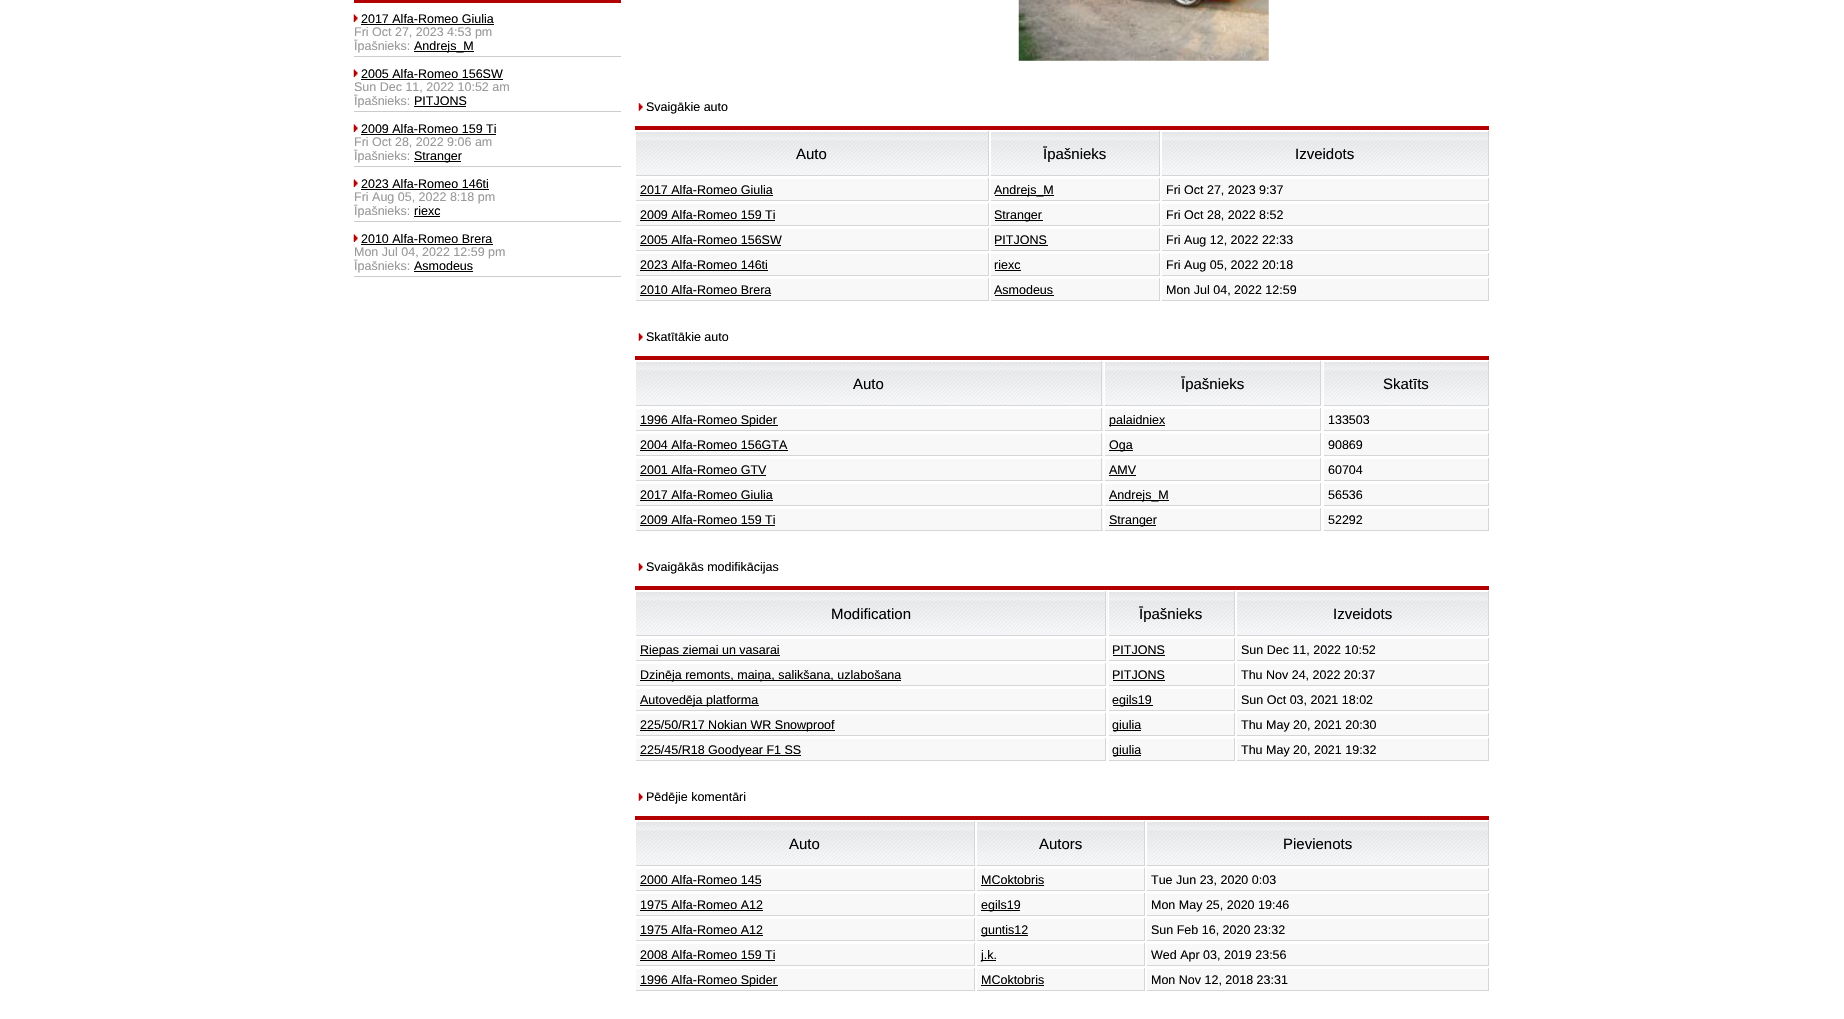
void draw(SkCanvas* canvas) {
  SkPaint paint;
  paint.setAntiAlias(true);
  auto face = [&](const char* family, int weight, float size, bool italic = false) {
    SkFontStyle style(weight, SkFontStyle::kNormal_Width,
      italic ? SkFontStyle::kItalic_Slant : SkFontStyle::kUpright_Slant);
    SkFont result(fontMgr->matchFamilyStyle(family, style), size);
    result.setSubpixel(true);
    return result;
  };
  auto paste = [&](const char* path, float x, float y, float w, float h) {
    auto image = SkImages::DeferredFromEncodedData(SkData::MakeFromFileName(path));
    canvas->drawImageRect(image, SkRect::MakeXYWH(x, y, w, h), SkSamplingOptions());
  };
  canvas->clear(0xffffffff);
  paint.setColor(0xffb30000);
  canvas->drawRect(SkRect::MakeXYWH(354, 0, 267, 3), paint);
  paint.setColor(0xffcccccc);
  canvas->drawRect(SkRect::MakeXYWH(354, 56, 267, 1), paint);
  paste("img/1.png", 353, 14, 5, 8);
  {
    const struct { float x, y, w, h; SkColor color; } items[] = {
      {361, 24, 133, 1, 0xff000000},
      {414, 51, 60, 1, 0xff000000},
      {354, 111, 267, 1, 0xffcccccc},
    };
    for (auto [x, y, w, h, color] : items) {
      paint.setColor(color);
      canvas->drawRect(SkRect::MakeXYWH(x, y, w, h), paint);
    }
  }
  paste("img/1.png", 353, 69, 5, 8);
  {
    const struct { float x, y, w, h; SkColor color; } items[] = {
      {361, 79, 142, 1, 0xff000000},
      {414, 106, 52, 1, 0xff000000},
      {354, 166, 267, 1, 0xffcccccc},
    };
    for (auto [x, y, w, h, color] : items) {
      paint.setColor(color);
      canvas->drawRect(SkRect::MakeXYWH(x, y, w, h), paint);
    }
  }
  paste("img/1.png", 353, 124, 5, 8);
  {
    const struct { float x, y, w, h; SkColor color; } items[] = {
      {361, 134, 135, 1, 0xff000000},
      {414, 161, 47, 1, 0xff000000},
      {354, 221, 267, 1, 0xffcccccc},
    };
    for (auto [x, y, w, h, color] : items) {
      paint.setColor(color);
      canvas->drawRect(SkRect::MakeXYWH(x, y, w, h), paint);
    }
  }
  paste("img/1.png", 353, 179, 5, 8);
  {
    const struct { float x, y, w, h; SkColor color; } items[] = {
      {361, 189, 128, 1, 0xff000000},
      {414, 216, 26, 1, 0xff000000},
      {354, 276, 267, 1, 0xffcccccc},
    };
    for (auto [x, y, w, h, color] : items) {
      paint.setColor(color);
      canvas->drawRect(SkRect::MakeXYWH(x, y, w, h), paint);
    }
  }
  paste("img/2.png", 353, 234, 5, 8);
  paint.setColor(0xff000000);
  canvas->drawRect(SkRect::MakeXYWH(361, 244, 132, 1), paint);
  canvas->drawRect(SkRect::MakeXYWH(414, 271, 59, 1), paint);
  paste("img/3.png", 1018, 0, 251, 61);
  paint.setColor(0xffb30000);
  canvas->drawRect(SkRect::MakeXYWH(635, 126, 854, 4), paint);
  paste("img/4.png", 638, 103, 5, 8);
  paste("img/5.png", 636, 132, 352, 43);
  {
    const struct { float x, y, w, h; SkColor color; } items[] = {
      {988, 131, 1, 45, 0xffd6d6d6},
      {635, 175, 354, 1, 0xffd6d6d6},
      {635, 175, 1, 1, 0xffffffff},
    };
    for (auto [x, y, w, h, color] : items) {
      paint.setColor(color);
      canvas->drawRect(SkRect::MakeXYWH(x, y, w, h), paint);
    }
  }
  paste("img/6.png", 991, 132, 168, 43);
  {
    const struct { float x, y, w, h; SkColor color; } items[] = {
      {1159, 131, 1, 45, 0xffd6d6d6},
      {990, 175, 170, 1, 0xffd6d6d6},
      {990, 175, 1, 1, 0xffffffff},
    };
    for (auto [x, y, w, h, color] : items) {
      paint.setColor(color);
      canvas->drawRect(SkRect::MakeXYWH(x, y, w, h), paint);
    }
  }
  paste("img/7.png", 1162, 132, 326, 43);
  {
    const struct { float x, y, w, h; SkColor color; } items[] = {
      {1488, 131, 1, 45, 0xffd6d6d6},
      {1161, 175, 328, 1, 0xffd6d6d6},
      {1161, 175, 1, 1, 0xffffffff},
      {636, 179, 352, 21, 0xfff8f8f8},
      {988, 178, 1, 23, 0xffd6d6d6},
      {635, 200, 354, 1, 0xffd6d6d6},
      {635, 200, 1, 1, 0xffffffff},
      {640, 195, 133, 1, 0xff000000},
      {991, 179, 168, 21, 0xfff8f8f8},
      {1159, 178, 1, 23, 0xffd6d6d6},
      {990, 200, 170, 1, 0xffd6d6d6},
      {990, 200, 1, 1, 0xffffffff},
      {995, 195, 59, 1, 0xff000000},
      {1162, 179, 326, 21, 0xfff8f8f8},
      {1488, 178, 1, 23, 0xffd6d6d6},
      {1161, 200, 328, 1, 0xffd6d6d6},
      {1161, 200, 1, 1, 0xffffffff},
      {636, 204, 352, 21, 0xfff8f8f8},
      {988, 203, 1, 23, 0xffd6d6d6},
      {635, 225, 354, 1, 0xffd6d6d6},
      {635, 225, 1, 1, 0xffffffff},
      {640, 220, 135, 1, 0xff000000},
      {991, 204, 168, 21, 0xfff8f8f8},
      {1159, 203, 1, 23, 0xffd6d6d6},
      {990, 225, 170, 1, 0xffd6d6d6},
      {990, 225, 1, 1, 0xffffffff},
      {995, 220, 48, 1, 0xff000000},
      {1162, 204, 326, 21, 0xfff8f8f8},
      {1488, 203, 1, 23, 0xffd6d6d6},
      {1161, 225, 328, 1, 0xffd6d6d6},
      {1161, 225, 1, 1, 0xffffffff},
      {636, 229, 352, 21, 0xfff8f8f8},
      {988, 228, 1, 23, 0xffd6d6d6},
      {635, 250, 354, 1, 0xffd6d6d6},
      {635, 250, 1, 1, 0xffffffff},
      {640, 245, 141, 1, 0xff000000},
      {991, 229, 168, 21, 0xfff8f8f8},
      {1159, 228, 1, 23, 0xffd6d6d6},
      {990, 250, 170, 1, 0xffd6d6d6},
      {990, 250, 1, 1, 0xffffffff},
      {995, 245, 53, 1, 0xff000000},
      {1162, 229, 326, 21, 0xfff8f8f8},
      {1488, 228, 1, 23, 0xffd6d6d6},
      {1161, 250, 328, 1, 0xffd6d6d6},
      {1161, 250, 1, 1, 0xffffffff},
      {636, 254, 352, 21, 0xfff8f8f8},
      {988, 253, 1, 23, 0xffd6d6d6},
      {635, 275, 354, 1, 0xffd6d6d6},
      {635, 275, 1, 1, 0xffffffff},
      {640, 270, 128, 1, 0xff000000},
      {991, 254, 168, 21, 0xfff8f8f8},
      {1159, 253, 1, 23, 0xffd6d6d6},
      {990, 275, 170, 1, 0xffd6d6d6},
      {990, 275, 1, 1, 0xffffffff},
      {995, 270, 26, 1, 0xff000000},
      {1162, 254, 326, 21, 0xfff8f8f8},
      {1488, 253, 1, 23, 0xffd6d6d6},
      {1161, 275, 328, 1, 0xffd6d6d6},
      {1161, 275, 1, 1, 0xffffffff},
      {636, 279, 352, 21, 0xfff8f8f8},
      {988, 278, 1, 23, 0xffd6d6d6},
      {635, 300, 354, 1, 0xffd6d6d6},
      {635, 300, 1, 1, 0xffffffff},
      {640, 295, 131, 1, 0xff000000},
      {991, 279, 168, 21, 0xfff8f8f8},
      {1159, 278, 1, 23, 0xffd6d6d6},
      {990, 300, 170, 1, 0xffd6d6d6},
      {990, 300, 1, 1, 0xffffffff},
      {995, 295, 59, 1, 0xff000000},
      {1162, 279, 326, 21, 0xfff8f8f8},
      {1488, 278, 1, 23, 0xffd6d6d6},
      {1161, 300, 328, 1, 0xffd6d6d6},
      {1161, 300, 1, 1, 0xffffffff},
      {635, 356, 854, 4, 0xffb30000},
    };
    for (auto [x, y, w, h, color] : items) {
      paint.setColor(color);
      canvas->drawRect(SkRect::MakeXYWH(x, y, w, h), paint);
    }
  }
  paste("img/4.png", 638, 333, 5, 8);
  paste("img/8.png", 636, 362, 467, 43);
  {
    const struct { float x, y, w, h; SkColor color; } items[] = {
      {1101, 361, 1, 45, 0xffd6d6d6},
      {635, 405, 468, 1, 0xffd6d6d6},
      {635, 405, 1, 1, 0xffffffff},
    };
    for (auto [x, y, w, h, color] : items) {
      paint.setColor(color);
      canvas->drawRect(SkRect::MakeXYWH(x, y, w, h), paint);
    }
  }
  paste("img/9.png", 1103, 362, 219, 44);
  {
    const struct { float x, y, w, h; SkColor color; } items[] = {
      {1320, 361, 1, 45, 0xffd6d6d6},
      {1104, 405, 217, 1, 0xffd6d6d6},
      {1104, 361, 1, 45, 0xffffffff},
    };
    for (auto [x, y, w, h, color] : items) {
      paint.setColor(color);
      canvas->drawRect(SkRect::MakeXYWH(x, y, w, h), paint);
    }
  }
  paste("img/10.png", 1322, 362, 166, 44);
  {
    const struct { float x, y, w, h; SkColor color; } items[] = {
      {1488, 361, 1, 45, 0xffd6d6d6},
      {1323, 405, 166, 1, 0xffd6d6d6},
      {1323, 361, 1, 45, 0xffffffff},
      {636, 409, 467, 21, 0xfff8f8f8},
      {1101, 408, 1, 23, 0xffd6d6d6},
      {635, 430, 468, 1, 0xffd6d6d6},
      {635, 430, 1, 1, 0xffffffff},
      {640, 425, 138, 1, 0xff000000},
      {1105, 409, 215, 21, 0xfff8f8f8},
      {1320, 408, 1, 23, 0xffd6d6d6},
      {1104, 430, 217, 1, 0xffd6d6d6},
      {1104, 430, 1, 1, 0xffffffff},
      {1109, 425, 56, 1, 0xff000000},
      {1324, 409, 164, 21, 0xfff8f8f8},
      {1488, 408, 1, 23, 0xffd6d6d6},
      {1323, 430, 166, 1, 0xffd6d6d6},
      {1323, 430, 1, 1, 0xffffffff},
      {636, 434, 467, 21, 0xfff8f8f8},
      {1101, 433, 1, 23, 0xffd6d6d6},
      {635, 455, 468, 1, 0xffd6d6d6},
      {635, 455, 1, 1, 0xffffffff},
      {640, 450, 148, 1, 0xff000000},
      {1105, 434, 215, 21, 0xfff8f8f8},
      {1320, 433, 1, 23, 0xffd6d6d6},
      {1104, 455, 217, 1, 0xffd6d6d6},
      {1104, 455, 1, 1, 0xffffffff},
      {1109, 450, 24, 1, 0xff000000},
      {1324, 434, 164, 21, 0xfff8f8f8},
      {1488, 433, 1, 23, 0xffd6d6d6},
      {1323, 455, 166, 1, 0xffd6d6d6},
      {1323, 455, 1, 1, 0xffffffff},
      {636, 459, 467, 21, 0xfff8f8f8},
      {1101, 458, 1, 23, 0xffd6d6d6},
      {635, 480, 468, 1, 0xffd6d6d6},
      {635, 480, 1, 1, 0xffffffff},
      {640, 475, 126, 1, 0xff000000},
      {1105, 459, 215, 21, 0xfff8f8f8},
      {1320, 458, 1, 23, 0xffd6d6d6},
      {1104, 480, 217, 1, 0xffd6d6d6},
      {1104, 480, 1, 1, 0xffffffff},
      {1109, 475, 27, 1, 0xff000000},
      {1324, 459, 164, 21, 0xfff8f8f8},
      {1488, 458, 1, 23, 0xffd6d6d6},
      {1323, 480, 166, 1, 0xffd6d6d6},
      {1323, 480, 1, 1, 0xffffffff},
      {636, 484, 467, 21, 0xfff8f8f8},
      {1101, 483, 1, 23, 0xffd6d6d6},
      {635, 505, 468, 1, 0xffd6d6d6},
      {635, 505, 1, 1, 0xffffffff},
      {640, 500, 133, 1, 0xff000000},
      {1105, 484, 215, 21, 0xfff8f8f8},
      {1320, 483, 1, 23, 0xffd6d6d6},
      {1104, 505, 217, 1, 0xffd6d6d6},
      {1104, 505, 1, 1, 0xffffffff},
      {1109, 500, 60, 1, 0xff000000},
      {1324, 484, 164, 21, 0xfff8f8f8},
      {1488, 483, 1, 23, 0xffd6d6d6},
      {1323, 505, 166, 1, 0xffd6d6d6},
      {1323, 505, 1, 1, 0xffffffff},
      {636, 509, 467, 21, 0xfff8f8f8},
      {1101, 508, 1, 23, 0xffd6d6d6},
      {635, 530, 468, 1, 0xffd6d6d6},
      {635, 530, 1, 1, 0xffffffff},
      {640, 525, 135, 1, 0xff000000},
      {1105, 509, 215, 21, 0xfff8f8f8},
      {1320, 508, 1, 23, 0xffd6d6d6},
      {1104, 530, 217, 1, 0xffd6d6d6},
      {1104, 530, 1, 1, 0xffffffff},
      {1109, 525, 47, 1, 0xff000000},
      {1324, 509, 164, 21, 0xfff8f8f8},
      {1488, 508, 1, 23, 0xffd6d6d6},
      {1323, 530, 166, 1, 0xffd6d6d6},
      {1323, 530, 1, 1, 0xffffffff},
      {635, 586, 854, 4, 0xffb30000},
    };
    for (auto [x, y, w, h, color] : items) {
      paint.setColor(color);
      canvas->drawRect(SkRect::MakeXYWH(x, y, w, h), paint);
    }
  }
  paste("img/4.png", 638, 563, 5, 8);
  paste("img/11.png", 636, 592, 471, 44);
  {
    const struct { float x, y, w, h; SkColor color; } items[] = {
      {1105, 591, 1, 45, 0xffd6d6d6},
      {635, 635, 471, 1, 0xffd6d6d6},
      {635, 635, 1, 1, 0xffffffff},
    };
    for (auto [x, y, w, h, color] : items) {
      paint.setColor(color);
      canvas->drawRect(SkRect::MakeXYWH(x, y, w, h), paint);
    }
  }
  paste("img/12.png", 1107, 592, 127, 44);
  {
    const struct { float x, y, w, h; SkColor color; } items[] = {
      {1234, 591, 1, 45, 0xffd6d6d6},
      {1108, 635, 127, 1, 0xffd6d6d6},
      {1108, 591, 1, 45, 0xffffffff},
    };
    for (auto [x, y, w, h, color] : items) {
      paint.setColor(color);
      canvas->drawRect(SkRect::MakeXYWH(x, y, w, h), paint);
    }
  }
  paste("img/13.png", 1237, 592, 251, 43);
  {
    const struct { float x, y, w, h; SkColor color; } items[] = {
      {1488, 591, 1, 45, 0xffd6d6d6},
      {1236, 635, 253, 1, 0xffd6d6d6},
      {1236, 635, 1, 1, 0xffffffff},
      {636, 639, 469, 21, 0xfff8f8f8},
      {1105, 638, 1, 23, 0xffd6d6d6},
      {635, 660, 471, 1, 0xffd6d6d6},
      {635, 660, 1, 1, 0xffffffff},
      {640, 655, 140, 1, 0xff000000},
      {1109, 639, 125, 21, 0xfff8f8f8},
      {1234, 638, 1, 23, 0xffd6d6d6},
      {1108, 660, 127, 1, 0xffd6d6d6},
      {1108, 660, 1, 1, 0xffffffff},
      {1113, 655, 52, 1, 0xff000000},
      {1237, 639, 251, 21, 0xfff8f8f8},
      {1488, 638, 1, 23, 0xffd6d6d6},
      {1236, 660, 253, 1, 0xffd6d6d6},
      {1236, 660, 1, 1, 0xffffffff},
      {636, 664, 469, 21, 0xfff8f8f8},
      {1105, 663, 1, 23, 0xffd6d6d6},
      {635, 685, 471, 1, 0xffd6d6d6},
      {635, 685, 1, 1, 0xffffffff},
      {640, 680, 261, 1, 0xff000000},
      {1109, 664, 125, 21, 0xfff8f8f8},
      {1234, 663, 1, 23, 0xffd6d6d6},
      {1108, 685, 127, 1, 0xffd6d6d6},
      {1108, 685, 1, 1, 0xffffffff},
      {1113, 680, 52, 1, 0xff000000},
      {1237, 664, 251, 21, 0xfff8f8f8},
      {1488, 663, 1, 23, 0xffd6d6d6},
      {1236, 685, 253, 1, 0xffd6d6d6},
      {1236, 685, 1, 1, 0xffffffff},
      {636, 689, 469, 21, 0xfff8f8f8},
      {1105, 688, 1, 23, 0xffd6d6d6},
      {635, 710, 471, 1, 0xffd6d6d6},
      {635, 710, 1, 1, 0xffffffff},
      {640, 705, 119, 1, 0xff000000},
      {1109, 689, 125, 21, 0xfff8f8f8},
      {1234, 688, 1, 23, 0xffd6d6d6},
      {1108, 710, 127, 1, 0xffd6d6d6},
      {1108, 710, 1, 1, 0xffffffff},
      {1113, 705, 40, 1, 0xff000000},
      {1237, 689, 251, 21, 0xfff8f8f8},
      {1488, 688, 1, 23, 0xffd6d6d6},
      {1236, 710, 253, 1, 0xffd6d6d6},
      {1236, 710, 1, 1, 0xffffffff},
      {636, 714, 469, 21, 0xfff8f8f8},
      {1105, 713, 1, 23, 0xffd6d6d6},
      {635, 735, 471, 1, 0xffd6d6d6},
      {635, 735, 1, 1, 0xffffffff},
      {640, 730, 195, 1, 0xff000000},
      {1109, 714, 125, 21, 0xfff8f8f8},
      {1234, 713, 1, 23, 0xffd6d6d6},
      {1108, 735, 127, 1, 0xffd6d6d6},
      {1108, 735, 1, 1, 0xffffffff},
      {1113, 730, 28, 1, 0xff000000},
      {1237, 714, 251, 21, 0xfff8f8f8},
      {1488, 713, 1, 23, 0xffd6d6d6},
      {1236, 735, 253, 1, 0xffd6d6d6},
      {1236, 735, 1, 1, 0xffffffff},
      {636, 739, 469, 21, 0xfff8f8f8},
      {1105, 738, 1, 23, 0xffd6d6d6},
      {635, 760, 471, 1, 0xffd6d6d6},
      {635, 760, 1, 1, 0xffffffff},
      {640, 755, 161, 1, 0xff000000},
      {1109, 739, 125, 21, 0xfff8f8f8},
      {1234, 738, 1, 23, 0xffd6d6d6},
      {1108, 760, 127, 1, 0xffd6d6d6},
      {1108, 760, 1, 1, 0xffffffff},
      {1113, 755, 28, 1, 0xff000000},
      {1237, 739, 251, 21, 0xfff8f8f8},
      {1488, 738, 1, 23, 0xffd6d6d6},
      {1236, 760, 253, 1, 0xffd6d6d6},
      {1236, 760, 1, 1, 0xffffffff},
      {635, 816, 854, 4, 0xffb30000},
    };
    for (auto [x, y, w, h, color] : items) {
      paint.setColor(color);
      canvas->drawRect(SkRect::MakeXYWH(x, y, w, h), paint);
    }
  }
  paste("img/4.png", 638, 793, 5, 8);
  paste("img/14.png", 636, 822, 338, 43);
  {
    const struct { float x, y, w, h; SkColor color; } items[] = {
      {974, 821, 1, 45, 0xffd6d6d6},
      {635, 865, 340, 1, 0xffd6d6d6},
      {635, 865, 1, 1, 0xffffffff},
    };
    for (auto [x, y, w, h, color] : items) {
      paint.setColor(color);
      canvas->drawRect(SkRect::MakeXYWH(x, y, w, h), paint);
    }
  }
  paste("img/15.png", 977, 822, 167, 43);
  {
    const struct { float x, y, w, h; SkColor color; } items[] = {
      {1144, 821, 1, 45, 0xffd6d6d6},
      {976, 865, 169, 1, 0xffd6d6d6},
      {976, 865, 1, 1, 0xffffffff},
    };
    for (auto [x, y, w, h, color] : items) {
      paint.setColor(color);
      canvas->drawRect(SkRect::MakeXYWH(x, y, w, h), paint);
    }
  }
  paste("img/16.png", 1147, 822, 341, 43);
  {
    const struct { float x, y, w, h; SkColor color; } items[] = {
      {1488, 821, 1, 45, 0xffd6d6d6},
      {1146, 865, 343, 1, 0xffd6d6d6},
      {1146, 865, 1, 1, 0xffffffff},
      {636, 869, 338, 21, 0xfff8f8f8},
      {974, 868, 1, 23, 0xffd6d6d6},
      {635, 890, 340, 1, 0xffd6d6d6},
      {635, 890, 1, 1, 0xffffffff},
      {640, 885, 121, 1, 0xff000000},
      {977, 869, 167, 21, 0xfff8f8f8},
      {1144, 868, 1, 23, 0xffd6d6d6},
      {976, 890, 169, 1, 0xffd6d6d6},
      {976, 890, 1, 1, 0xffffffff},
      {981, 885, 63, 1, 0xff000000},
      {1147, 869, 341, 21, 0xfff8f8f8},
      {1488, 868, 1, 23, 0xffd6d6d6},
      {1146, 890, 343, 1, 0xffd6d6d6},
      {1146, 890, 1, 1, 0xffffffff},
      {636, 894, 338, 21, 0xfff8f8f8},
      {974, 893, 1, 23, 0xffd6d6d6},
      {635, 915, 340, 1, 0xffd6d6d6},
      {635, 915, 1, 1, 0xffffffff},
      {640, 910, 123, 1, 0xff000000},
      {977, 894, 167, 21, 0xfff8f8f8},
      {1144, 893, 1, 23, 0xffd6d6d6},
      {976, 915, 169, 1, 0xffd6d6d6},
      {976, 915, 1, 1, 0xffffffff},
      {981, 910, 39, 1, 0xff000000},
      {1147, 894, 341, 21, 0xfff8f8f8},
      {1488, 893, 1, 23, 0xffd6d6d6},
      {1146, 915, 343, 1, 0xffd6d6d6},
      {1146, 915, 1, 1, 0xffffffff},
      {636, 919, 338, 21, 0xfff8f8f8},
      {974, 918, 1, 23, 0xffd6d6d6},
      {635, 940, 340, 1, 0xffd6d6d6},
      {635, 940, 1, 1, 0xffffffff},
      {640, 935, 123, 1, 0xff000000},
      {977, 919, 167, 21, 0xfff8f8f8},
      {1144, 918, 1, 23, 0xffd6d6d6},
      {976, 940, 169, 1, 0xffd6d6d6},
      {976, 940, 1, 1, 0xffffffff},
      {981, 935, 47, 1, 0xff000000},
      {1147, 919, 341, 21, 0xfff8f8f8},
      {1488, 918, 1, 23, 0xffd6d6d6},
      {1146, 940, 343, 1, 0xffd6d6d6},
      {1146, 940, 1, 1, 0xffffffff},
      {636, 944, 338, 21, 0xfff8f8f8},
      {974, 943, 1, 23, 0xffd6d6d6},
      {635, 965, 340, 1, 0xffd6d6d6},
      {635, 965, 1, 1, 0xffffffff},
      {640, 960, 135, 1, 0xff000000},
      {977, 944, 167, 21, 0xfff8f8f8},
      {1144, 943, 1, 23, 0xffd6d6d6},
      {976, 965, 169, 1, 0xffd6d6d6},
      {976, 965, 1, 1, 0xffffffff},
      {981, 960, 15, 1, 0xff000000},
      {1147, 944, 341, 21, 0xfff8f8f8},
      {1488, 943, 1, 23, 0xffd6d6d6},
      {1146, 965, 343, 1, 0xffd6d6d6},
      {1146, 965, 1, 1, 0xffffffff},
      {636, 969, 338, 21, 0xfff8f8f8},
      {974, 968, 1, 23, 0xffd6d6d6},
      {635, 990, 340, 1, 0xffd6d6d6},
      {635, 990, 1, 1, 0xffffffff},
      {640, 985, 138, 1, 0xff000000},
      {977, 969, 167, 21, 0xfff8f8f8},
      {1144, 968, 1, 23, 0xffd6d6d6},
      {976, 990, 169, 1, 0xffd6d6d6},
      {976, 990, 1, 1, 0xffffffff},
      {981, 985, 63, 1, 0xff000000},
      {1147, 969, 341, 21, 0xfff8f8f8},
      {1488, 968, 1, 23, 0xffd6d6d6},
      {1146, 990, 343, 1, 0xffd6d6d6},
      {1146, 990, 1, 1, 0xffffffff},
    };
    for (auto [x, y, w, h, color] : items) {
      paint.setColor(color);
      canvas->drawRect(SkRect::MakeXYWH(x, y, w, h), paint);
    }
  }
  auto f0 = face("Liberation Sans", 400, 12.5f);
  paint.setColor(0xff000000);
  canvas->drawString("2017 Alfa-Romeo Giulia", 361, 23, f0, paint);
  paint.setColor(0xff999999);
  canvas->drawString("Fri Oct 27, 2023 4:53 pm", 354, 36, f0, paint);
  canvas->drawString("Īpašnieks:", 354, 50, f0, paint);
  paint.setColor(0xff000000);
  canvas->drawString("Andrejs_M", 414, 50, f0, paint);
  canvas->drawString("2005 Alfa-Romeo 156SW", 361, 78, f0, paint);
  paint.setColor(0xff999999);
  canvas->drawString("Sun Dec 11, 2022 10:52 am", 354, 91, f0, paint);
  canvas->drawString("Īpašnieks:", 354, 105, f0, paint);
  paint.setColor(0xff000000);
  canvas->drawString("PITJONS", 414, 105, f0, paint);
  canvas->drawString("2009 Alfa-Romeo 159 Ti", 361, 133, f0, paint);
  paint.setColor(0xff999999);
  canvas->drawString("Fri Oct 28, 2022 9:06 am", 354, 146, f0, paint);
  canvas->drawString("Īpašnieks:", 354, 160, f0, paint);
  paint.setColor(0xff000000);
  canvas->drawString("Stranger", 414, 160, f0, paint);
  canvas->drawString("2023 Alfa-Romeo 146ti", 361, 188, f0, paint);
  paint.setColor(0xff999999);
  canvas->drawString("Fri Aug 05, 2022 8:18 pm", 354, 201, f0, paint);
  canvas->drawString("Īpašnieks:", 354, 215, f0, paint);
  paint.setColor(0xff000000);
  canvas->drawString("riexc", 414, 215, f0, paint);
  canvas->drawString("2010 Alfa-Romeo Brera", 361, 243, f0, paint);
  paint.setColor(0xff999999);
  canvas->drawString("Mon Jul 04, 2022 12:59 pm", 354, 256, f0, paint);
  canvas->drawString("Īpašnieks:", 354, 270, f0, paint);
  paint.setColor(0xff000000);
  canvas->drawString("Asmodeus", 414, 270, f0, paint);
  canvas->drawString("Svaigākie auto", 646, 111, f0, paint);
  auto f1 = face("Liberation Sans", 400, 15);
  {
    const struct { const char* s; float x, y; } items[] = {
      {"Auto", 796, 159},
      {"Īpašnieks", 1043, 159},
      {"Izveidots", 1295, 159},
    };
    for (auto [s, x, y] : items) {
      canvas->drawString(s, x, y, f1, paint);
    }
  }
  {
    const struct { const char* s; float x, y; } items[] = {
      {"2017 Alfa-Romeo Giulia", 640, 194},
      {"Andrejs_M", 994, 194},
      {"Fri Oct 27, 2023 9:37", 1166, 194},
      {"2009 Alfa-Romeo 159 Ti", 640, 219},
      {"Stranger", 994, 219},
      {"Fri Oct 28, 2022 8:52", 1166, 219},
      {"2005 Alfa-Romeo 156SW", 640, 244},
      {"PITJONS", 994, 244},
      {"Fri Aug 12, 2022 22:33", 1166, 244},
      {"2023 Alfa-Romeo 146ti", 640, 269},
      {"riexc", 994, 269},
      {"Fri Aug 05, 2022 20:18", 1166, 269},
      {"2010 Alfa-Romeo Brera", 640, 294},
      {"Asmodeus", 994, 294},
      {"Mon Jul 04, 2022 12:59", 1166, 294},
      {"Skatītākie auto", 646, 341},
    };
    for (auto [s, x, y] : items) {
      canvas->drawString(s, x, y, f0, paint);
    }
  }
  {
    const struct { const char* s; float x, y; } items[] = {
      {"Auto", 853, 389},
      {"Īpašnieks", 1181, 389},
      {"Skatīts", 1383, 389},
    };
    for (auto [s, x, y] : items) {
      canvas->drawString(s, x, y, f1, paint);
    }
  }
  {
    const struct { const char* s; float x, y; } items[] = {
      {"1996 Alfa-Romeo Spider", 640, 424},
      {"palaidniex", 1109, 424},
      {"133503", 1328, 424},
      {"2004 Alfa-Romeo 156GTA", 640, 449},
      {"Oga", 1109, 449},
      {"90869", 1328, 449},
      {"2001 Alfa-Romeo GTV", 640, 474},
      {"AMV", 1109, 474},
      {"60704", 1328, 474},
      {"2017 Alfa-Romeo Giulia", 640, 499},
      {"Andrejs_M", 1109, 499},
      {"56536", 1328, 499},
      {"2009 Alfa-Romeo 159 Ti", 640, 524},
      {"Stranger", 1109, 524},
      {"52292", 1328, 524},
      {"Svaigākās modifikācijas", 646, 571},
    };
    for (auto [s, x, y] : items) {
      canvas->drawString(s, x, y, f0, paint);
    }
  }
  {
    const struct { const char* s; float x, y; } items[] = {
      {"Modification", 831, 619},
      {"Īpašnieks", 1139, 619},
      {"Izveidots", 1333, 619},
    };
    for (auto [s, x, y] : items) {
      canvas->drawString(s, x, y, f1, paint);
    }
  }
  {
    const struct { const char* s; float x, y; } items[] = {
      {"Riepas ziemai un vasarai", 640, 654},
      {"PITJONS", 1112, 654},
      {"Sun Dec 11, 2022 10:52", 1241, 654},
      {"Dzinēja remonts, maiņa, salikšana, uzlabošana", 640, 679},
      {"PITJONS", 1112, 679},
      {"Thu Nov 24, 2022 20:37", 1241, 679},
      {"Autovedēja platforma", 640, 704},
      {"egils19", 1112, 704},
      {"Sun Oct 03, 2021 18:02", 1241, 704},
      {"225/50/R17 Nokian WR Snowproof", 640, 729},
      {"giulia", 1112, 729},
      {"Thu May 20, 2021 20:30", 1241, 729},
      {"225/45/R18 Goodyear F1 SS", 640, 754},
      {"giulia", 1112, 754},
      {"Thu May 20, 2021 19:32", 1241, 754},
      {"Pēdējie komentāri", 646, 801},
    };
    for (auto [s, x, y] : items) {
      canvas->drawString(s, x, y, f0, paint);
    }
  }
  {
    const struct { const char* s; float x, y; } items[] = {
      {"Auto", 789, 849},
      {"Autors", 1039, 849},
      {"Pievienots", 1283, 849},
    };
    for (auto [s, x, y] : items) {
      canvas->drawString(s, x, y, f1, paint);
    }
  }
  {
    const struct { const char* s; float x, y; } items[] = {
      {"2000 Alfa-Romeo 145", 640, 884},
      {"MCoktobris", 981, 884},
      {"Tue Jun 23, 2020 0:03", 1151, 884},
      {"1975 Alfa-Romeo A12", 640, 909},
      {"egils19", 981, 909},
      {"Mon May 25, 2020 19:46", 1151, 909},
      {"1975 Alfa-Romeo A12", 640, 934},
      {"guntis12", 981, 934},
      {"Sun Feb 16, 2020 23:32", 1151, 934},
      {"2008 Alfa-Romeo 159 Ti", 640, 959},
      {"j.k.", 981, 959},
      {"Wed Apr 03, 2019 23:56", 1151, 959},
      {"1996 Alfa-Romeo Spider", 640, 984},
      {"MCoktobris", 981, 984},
      {"Mon Nov 12, 2018 23:31", 1151, 984},
    };
    for (auto [s, x, y] : items) {
      canvas->drawString(s, x, y, f0, paint);
    }
  }
}
